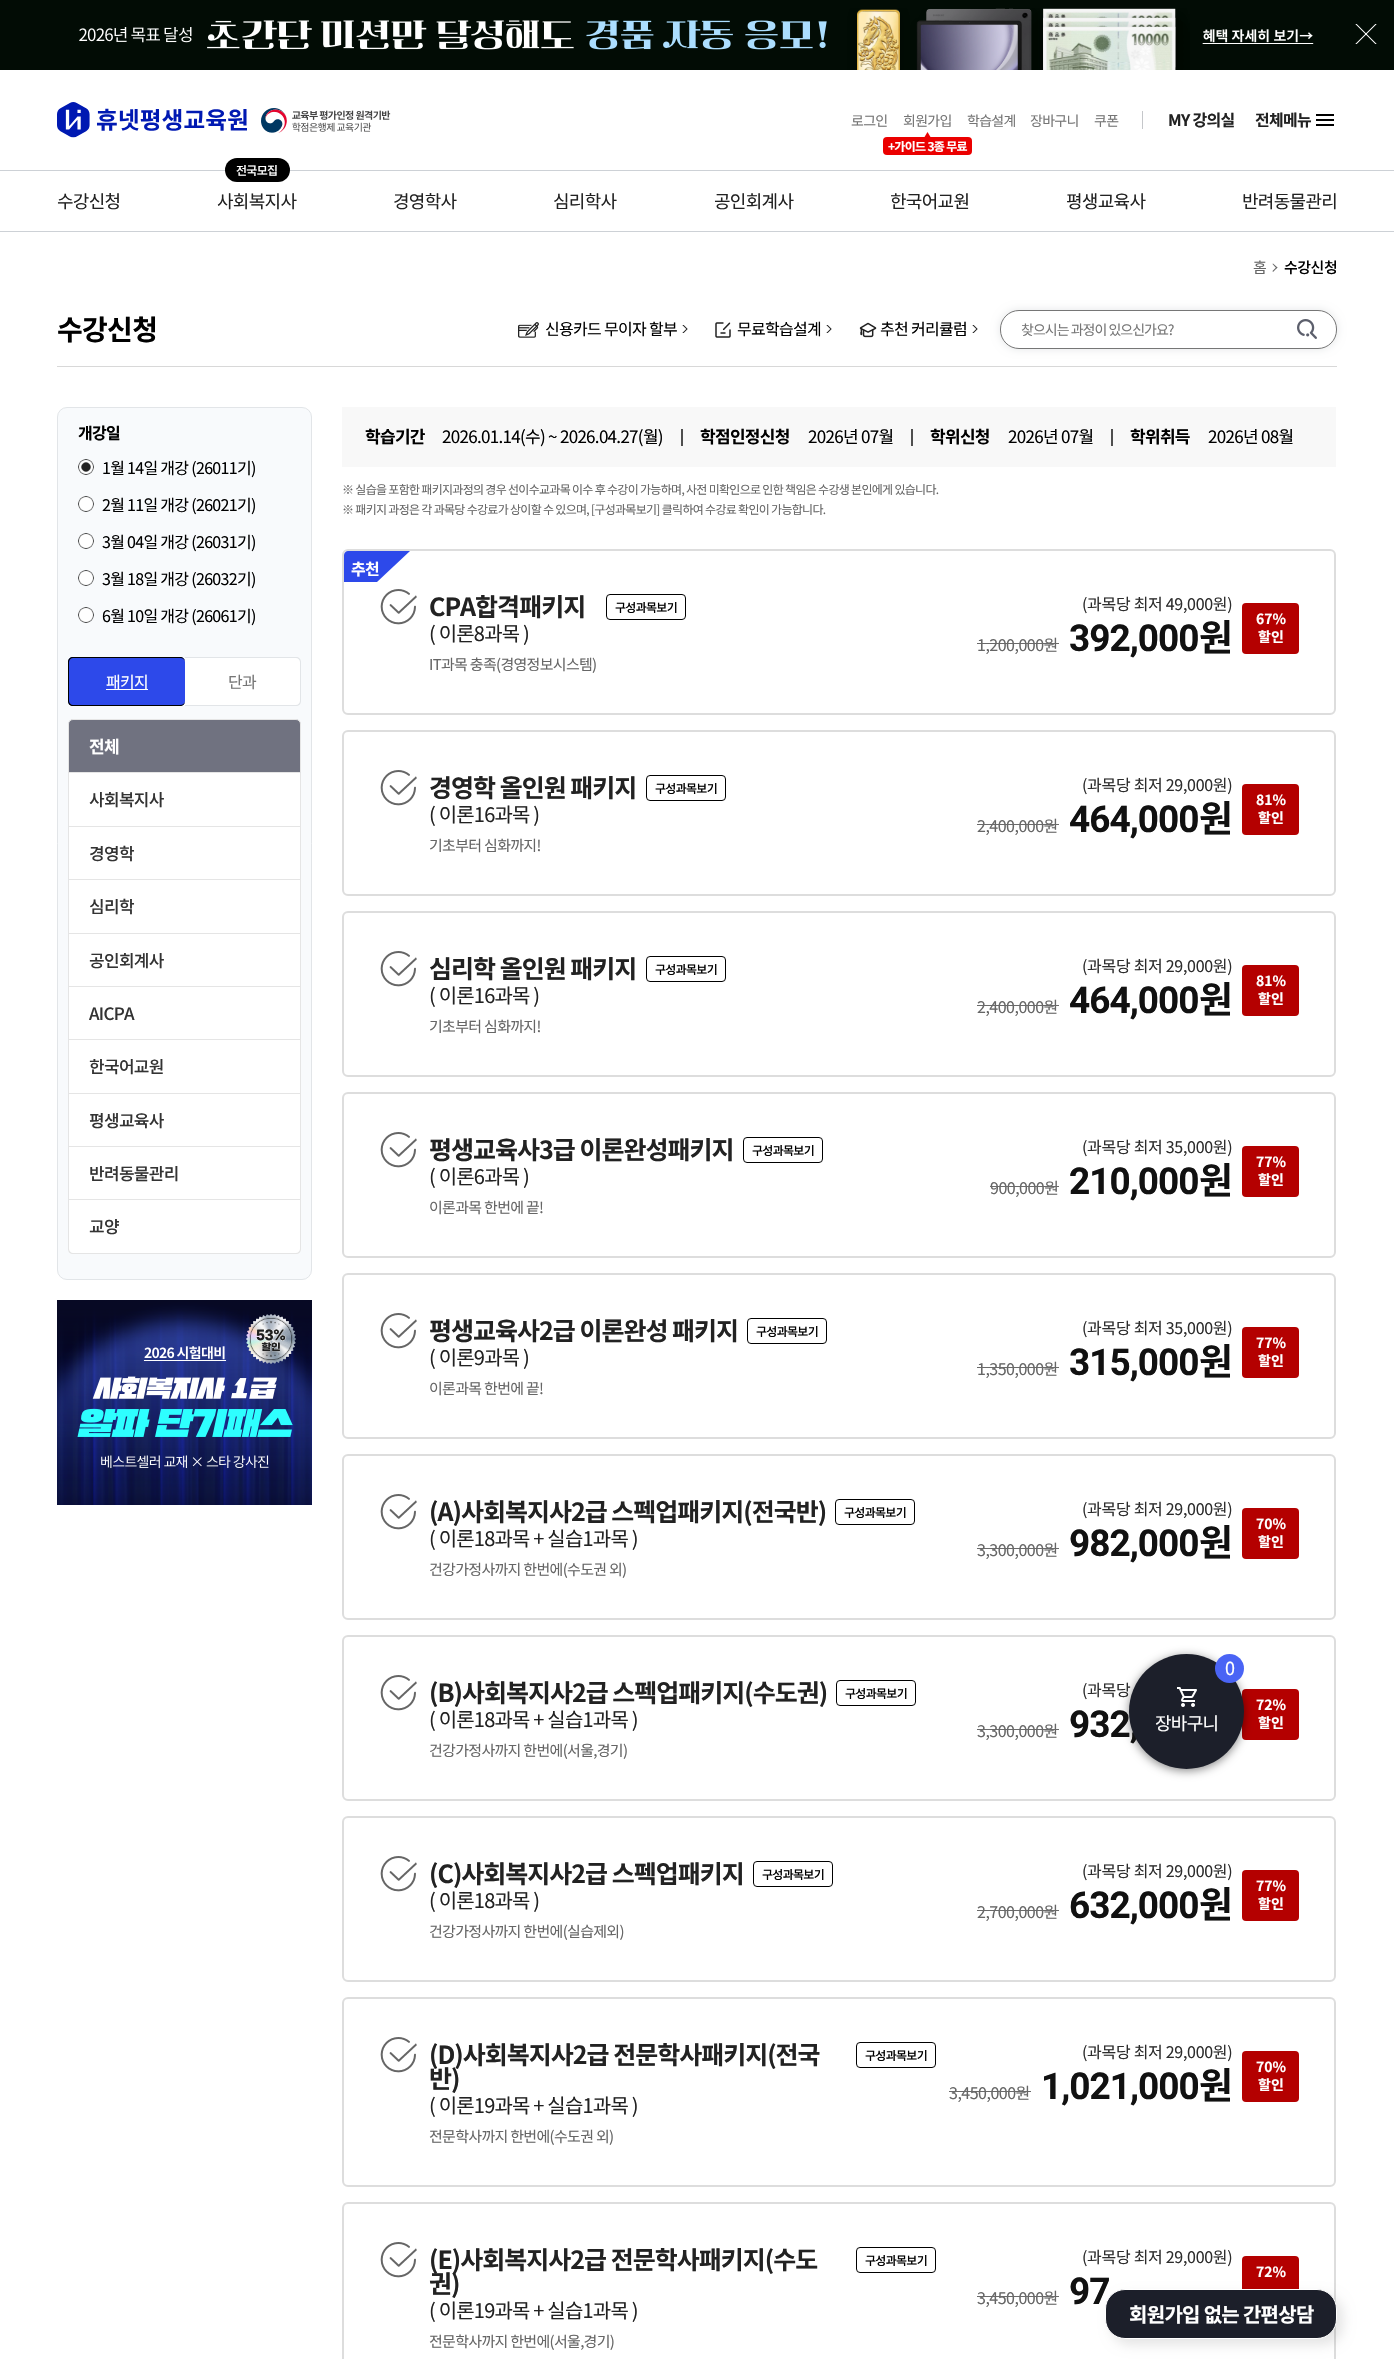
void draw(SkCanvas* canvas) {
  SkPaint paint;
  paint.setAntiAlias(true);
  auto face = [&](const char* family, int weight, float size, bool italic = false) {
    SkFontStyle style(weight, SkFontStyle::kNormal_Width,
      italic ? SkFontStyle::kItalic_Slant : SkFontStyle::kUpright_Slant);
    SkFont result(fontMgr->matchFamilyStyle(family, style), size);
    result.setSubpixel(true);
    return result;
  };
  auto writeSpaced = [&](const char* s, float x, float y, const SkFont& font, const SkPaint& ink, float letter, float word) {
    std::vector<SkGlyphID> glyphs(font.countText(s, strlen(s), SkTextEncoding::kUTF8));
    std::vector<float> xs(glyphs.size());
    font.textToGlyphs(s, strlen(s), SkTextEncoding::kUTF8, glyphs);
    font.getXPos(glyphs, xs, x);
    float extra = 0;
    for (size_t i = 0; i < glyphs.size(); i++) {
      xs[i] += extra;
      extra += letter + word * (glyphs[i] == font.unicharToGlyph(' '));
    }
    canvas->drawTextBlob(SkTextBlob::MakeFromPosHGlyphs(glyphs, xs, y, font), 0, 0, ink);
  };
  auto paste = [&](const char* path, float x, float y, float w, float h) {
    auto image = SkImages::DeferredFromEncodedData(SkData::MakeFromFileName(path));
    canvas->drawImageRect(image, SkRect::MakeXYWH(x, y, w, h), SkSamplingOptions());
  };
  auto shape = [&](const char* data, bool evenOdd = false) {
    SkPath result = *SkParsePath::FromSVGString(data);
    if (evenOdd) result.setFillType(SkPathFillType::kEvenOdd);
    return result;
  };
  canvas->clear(0xffffffff);
  paint.setColor(0xff020c05);
  canvas->drawRect(SkRect::MakeXYWH(0, 0, 1394, 70), paint);
  paste("img/1.png", 79, 8, 1235, 62);
  paste("img/2.png", 1355, 24, 22, 20);
  paint.setColor(0xffcdd1d6);
  canvas->drawRect(SkRect::MakeXYWH(0, 170, 1394, 1), paint);
  paste("img/3.png", 57, 102, 190, 36);
  paste("img/4.png", 261, 108, 130, 25);
  paint.setColor(0xffeb0000);
  canvas->drawRoundRect(SkRect::MakeXYWH(883, 137, 89, 18), 4, 4, paint);
  canvas->drawPath(shape("M930.5 137H924.5L927.5 132Z"), paint);
  {
    const struct { float x, y, w, h; SkColor color; } items[] = {
      {1142, 111, 1, 18, 0xffc5c7ca},
      {1316, 114, 18, 2, 0xff000000},
      {1316, 119, 18, 2, 0xff000000},
      {1316, 124, 18, 2, 0xff000000},
      {0, 231, 1394, 1, 0xffcdd1d6},
    };
    for (auto [x, y, w, h, color] : items) {
      paint.setColor(color);
      canvas->drawRect(SkRect::MakeXYWH(x, y, w, h), paint);
    }
  }
  paint.setColor(0xff000000);
  canvas->drawRoundRect(SkRect::MakeXYWH(225, 158, 65, 24), 12, 12, paint);
  paint.setColor(0xff666666);
  canvas->drawPath(shape("M1272.5 264L1273 263.5L1277.5 267.5L1276.5 268.5Z"), paint);
  canvas->drawPath(shape("M1272.5 271L1276.5 267L1277.5 267.5L1273 272Z"), paint);
  paint.setColor(0xffd8d8d8);
  canvas->drawRect(SkRect::MakeXYWH(57, 366, 1280, 1), paint);
  paste("img/5.png", 682, 325, 6, 8);
  paste("img/6.png", 518, 322, 21, 16);
  paste("img/5.png", 826, 325, 6, 8);
  paste("img/7.png", 715, 322, 16, 16);
  paste("img/5.png", 972, 325, 6, 8);
  paste("img/8.png", 859, 322, 18, 16);
  paint.setColor(0xffe4e6e7);
  paint.setMaskFilter(SkMaskFilter::MakeBlur(kNormal_SkBlurStyle, 4));
  canvas->drawRoundRect(SkRect::MakeXYWH(1000, 310, 337, 39), 19, 19, paint);
  paint.setMaskFilter(nullptr);
  paint.setColor(0xffffffff);
  canvas->drawRoundRect(SkRect::MakeXYWH(1000.5f, 310.5f, 336, 38), 18.5f, 18.5f, paint);
  paint.setStroke(true);
  paint.setStrokeWidth(1);
  paint.setColor(0xff767676);
  canvas->drawRoundRect(SkRect::MakeXYWH(1000.5f, 310.5f, 336, 38), 18.5f, 18.5f, paint);
  paste("img/9.png", 1297, 319, 20, 20);
  paint.setStroke(false);
  paint.setColor(0xfff8fafc);
  canvas->drawRoundRect(SkRect::MakeXYWH(57.5f, 407.5f, 254, 872), 9.5f, 9.5f, paint);
  paint.setStroke(true);
  paint.setColor(0xffe2e5e8);
  canvas->drawRoundRect(SkRect::MakeXYWH(57.5f, 407.5f, 254, 872), 9.5f, 9.5f, paint);
  paste("img/10.png", 78, 459, 16, 16);
  paste("img/11.png", 78, 496, 16, 16);
  paste("img/12.png", 78, 533, 16, 16);
  paste("img/12.png", 78, 570, 16, 16);
  paste("img/12.png", 78, 607, 16, 16);
  paint.setStroke(false);
  paint.setColor(0xff2d49ea);
  canvas->drawRoundRect(SkRect::MakeXYWH(68, 657, 117, 49), 5, 5, paint);
  paint.setColor(0xff000000);
  canvas->drawPath(shape("M73 657H180C183 657 185 659 185 662V701C185 704 183 706 180 706H73C70 706 68 704 68 701V662C68 659 70 657 73 657ZM73 658H180C183 658 185 660 185 662V701C185 703 183 705 180 705H73C71 705 69 703 69 701V662C69 660 71 658 73 658Z", true), paint);
  paint.setColor(0xffffffff);
  canvas->drawRect(SkRect::MakeXYWH(106, 689, 42, 1), paint);
  canvas->drawPath(shape("M185 657H296C299 657 301 659 301 662V701C301 704 299 706 296 706H185Z"), paint);
  paint.setColor(0xffe2e5e8);
  canvas->drawPath(shape("M185 657H296C299 657 301 659 301 662V701C301 704 299 706 296 706H185ZM185 658H296C298 658 300 660 300 662V701C300 703 298 705 296 705H185Z", true), paint);
  paint.setColor(0xff707280);
  canvas->drawPath(shape("M73 719.5H296C298.5 719.5 300.5 721.5 300.5 724V772.5H68.5V724C68.5 721.5 70.5 719.5 73 719.5Z"), paint);
  paint.setStroke(true);
  paint.setColor(0xffe5e5e5);
  canvas->drawPath(shape("M73 719.5H296C298.5 719.5 300.5 721.5 300.5 724V772.5H68.5V724C68.5 721.5 70.5 719.5 73 719.5Z"), paint);
  paint.setStroke(false);
  {
    const struct { float x, y, w, h; SkColor color; } items[] = {
      {69, 773, 231, 53, 0xffffffff},
      {300, 773, 1, 427, 0xffe5e5e5},
      {68, 826, 233, 1, 0xffe5e5e5},
      {68, 773, 1, 54, 0xffe5e5e5},
      {69, 827, 231, 52, 0xffffffff},
      {68, 879, 233, 1, 0xffe5e5e5},
      {68, 827, 1, 53, 0xffe5e5e5},
      {69, 880, 231, 53, 0xffffffff},
      {68, 933, 233, 1, 0xffe5e5e5},
      {68, 880, 1, 54, 0xffe5e5e5},
      {69, 934, 231, 52, 0xffffffff},
      {68, 986, 233, 1, 0xffe5e5e5},
      {68, 934, 1, 53, 0xffe5e5e5},
      {69, 987, 231, 52, 0xffffffff},
      {68, 1039, 233, 1, 0xffe5e5e5},
      {68, 987, 1, 53, 0xffe5e5e5},
      {69, 1040, 231, 53, 0xffffffff},
      {68, 1093, 233, 1, 0xffe5e5e5},
      {68, 1040, 1, 54, 0xffe5e5e5},
      {69, 1094, 231, 52, 0xffffffff},
      {68, 1146, 233, 1, 0xffe5e5e5},
      {68, 1094, 1, 53, 0xffe5e5e5},
      {69, 1147, 231, 52, 0xffffffff},
      {68, 1199, 233, 1, 0xffe5e5e5},
      {68, 1147, 1, 53, 0xffe5e5e5},
    };
    for (auto [x, y, w, h, color] : items) {
      paint.setColor(color);
      canvas->drawRect(SkRect::MakeXYWH(x, y, w, h), paint);
    }
  }
  paint.setColor(0xffffffff);
  canvas->drawPath(shape("M68 1200H301V1249C301 1252 299 1254 296 1254H73C70 1254 68 1252 68 1249Z"), paint);
  paint.setColor(0xffe5e5e5);
  canvas->drawPath(shape("M68 1200H301V1249C301 1252 299 1254 296 1254H73C70 1254 68 1252 68 1249ZM69 1200H300V1249C300 1251 298 1253 296 1253H73C71 1253 69 1251 69 1249Z", true), paint);
  paste("img/13.png", 57, 1300, 255, 205);
  {
    const struct { float x, y, w, h; SkColor color; } items[] = {
      {342, 407, 994, 60, 0xfff8f8f8},
      {681, 429, 2, 17, 0xff4f4f4f},
      {911, 429, 2, 17, 0xff4f4f4f},
      {1111, 429, 2, 17, 0xff4f4f4f},
    };
    for (auto [x, y, w, h, color] : items) {
      paint.setColor(color);
      canvas->drawRect(SkRect::MakeXYWH(x, y, w, h), paint);
    }
  }
  paint.setStroke(true);
  paint.setStrokeWidth(2);
  paint.setColor(0xffdddddd);
  canvas->drawRoundRect(SkRect::MakeXYWH(343, 550, 992, 164), 5, 5, paint);
  paint.setStroke(false);
  paint.setColor(0xff2d49ea);
  canvas->drawPath(shape("M348 551H410L377 582H344V555C344 553 346 551 348 551Z"), paint);
  paste("img/14.png", 380, 589, 37, 36);
  paint.setStroke(true);
  paint.setStrokeWidth(1);
  paint.setColor(0xff000000);
  canvas->drawRoundRect(SkRect::MakeXYWH(606.5f, 594.5f, 79, 25), 3.5f, 3.5f, paint);
  paint.setStroke(false);
  paint.setColor(0xffb40000);
  canvas->drawRoundRect(SkRect::MakeXYWH(1242, 603, 57, 51), 4, 4, paint);
  paint.setStroke(true);
  paint.setStrokeWidth(2);
  paint.setColor(0xffdddddd);
  canvas->drawRoundRect(SkRect::MakeXYWH(343, 731, 992, 164), 5, 5, paint);
  paste("img/14.png", 380, 770, 37, 36);
  paint.setStrokeWidth(1);
  paint.setColor(0xff000000);
  canvas->drawRoundRect(SkRect::MakeXYWH(646.5f, 775.5f, 79, 25), 3.5f, 3.5f, paint);
  paint.setStroke(false);
  paint.setColor(0xffb40000);
  canvas->drawRoundRect(SkRect::MakeXYWH(1242, 784, 57, 51), 4, 4, paint);
  paint.setStroke(true);
  paint.setStrokeWidth(2);
  paint.setColor(0xffdddddd);
  canvas->drawRoundRect(SkRect::MakeXYWH(343, 912, 992, 164), 5, 5, paint);
  paste("img/14.png", 380, 951, 37, 36);
  paint.setStrokeWidth(1);
  paint.setColor(0xff000000);
  canvas->drawRoundRect(SkRect::MakeXYWH(646.5f, 956.5f, 79, 25), 3.5f, 3.5f, paint);
  paint.setStroke(false);
  paint.setColor(0xffb40000);
  canvas->drawRoundRect(SkRect::MakeXYWH(1242, 965, 57, 51), 4, 4, paint);
  paint.setStroke(true);
  paint.setStrokeWidth(2);
  paint.setColor(0xffdddddd);
  canvas->drawRoundRect(SkRect::MakeXYWH(343, 1093, 992, 164), 5, 5, paint);
  paste("img/14.png", 380, 1132, 37, 36);
  paint.setStrokeWidth(1);
  paint.setColor(0xff000000);
  canvas->drawRoundRect(SkRect::MakeXYWH(743.5f, 1137.5f, 79, 25), 3.5f, 3.5f, paint);
  paint.setStroke(false);
  paint.setColor(0xffb40000);
  canvas->drawRoundRect(SkRect::MakeXYWH(1242, 1146, 57, 51), 4, 4, paint);
  paint.setStroke(true);
  paint.setStrokeWidth(2);
  paint.setColor(0xffdddddd);
  canvas->drawRoundRect(SkRect::MakeXYWH(343, 1274, 992, 164), 5, 5, paint);
  paste("img/14.png", 380, 1313, 37, 36);
  paint.setStrokeWidth(1);
  paint.setColor(0xff000000);
  canvas->drawRoundRect(SkRect::MakeXYWH(747.5f, 1318.5f, 79, 25), 3.5f, 3.5f, paint);
  paint.setStroke(false);
  paint.setColor(0xffb40000);
  canvas->drawRoundRect(SkRect::MakeXYWH(1242, 1327, 57, 51), 4, 4, paint);
  paint.setStroke(true);
  paint.setStrokeWidth(2);
  paint.setColor(0xffdddddd);
  canvas->drawRoundRect(SkRect::MakeXYWH(343, 1455, 992, 164), 5, 5, paint);
  paste("img/14.png", 380, 1494, 37, 36);
  paint.setStrokeWidth(1);
  paint.setColor(0xff000000);
  canvas->drawRoundRect(SkRect::MakeXYWH(835.5f, 1499.5f, 79, 25), 3.5f, 3.5f, paint);
  paint.setStroke(false);
  paint.setColor(0xffb40000);
  canvas->drawRoundRect(SkRect::MakeXYWH(1242, 1508, 57, 51), 4, 4, paint);
  paint.setStroke(true);
  paint.setStrokeWidth(2);
  paint.setColor(0xffdddddd);
  canvas->drawRoundRect(SkRect::MakeXYWH(343, 1636, 992, 164), 5, 5, paint);
  paste("img/14.png", 380, 1675, 37, 36);
  paint.setStrokeWidth(1);
  paint.setColor(0xff000000);
  canvas->drawRoundRect(SkRect::MakeXYWH(836.5f, 1680.5f, 79, 25), 3.5f, 3.5f, paint);
  paint.setStroke(false);
  paint.setColor(0xffb40000);
  canvas->drawRoundRect(SkRect::MakeXYWH(1242, 1689, 57, 51), 4, 4, paint);
  paint.setStroke(true);
  paint.setStrokeWidth(2);
  paint.setColor(0xffdddddd);
  canvas->drawRoundRect(SkRect::MakeXYWH(343, 1817, 992, 164), 5, 5, paint);
  paste("img/14.png", 380, 1856, 37, 36);
  paint.setStrokeWidth(1);
  paint.setColor(0xff000000);
  canvas->drawRoundRect(SkRect::MakeXYWH(753.5f, 1861.5f, 79, 25), 3.5f, 3.5f, paint);
  paint.setStroke(false);
  paint.setColor(0xffb40000);
  canvas->drawRoundRect(SkRect::MakeXYWH(1242, 1870, 57, 51), 4, 4, paint);
  paint.setStroke(true);
  paint.setStrokeWidth(2);
  paint.setColor(0xffdddddd);
  canvas->drawRoundRect(SkRect::MakeXYWH(343, 1998, 992, 188), 5, 5, paint);
  paste("img/14.png", 380, 2037, 37, 36);
  paint.setStrokeWidth(1);
  paint.setColor(0xff000000);
  canvas->drawRoundRect(SkRect::MakeXYWH(856.5f, 2042.5f, 79, 25), 3.5f, 3.5f, paint);
  paint.setStroke(false);
  paint.setColor(0xffb40000);
  canvas->drawRoundRect(SkRect::MakeXYWH(1242, 2051, 57, 51), 4, 4, paint);
  paint.setStroke(true);
  paint.setStrokeWidth(2);
  paint.setColor(0xffdddddd);
  canvas->drawRoundRect(SkRect::MakeXYWH(343, 2203, 992, 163), 5, 5, paint);
  paste("img/14.png", 380, 2242, 37, 36);
  paint.setStrokeWidth(1);
  paint.setColor(0xff000000);
  canvas->drawRoundRect(SkRect::MakeXYWH(856.5f, 2247.5f, 79, 25), 3.5f, 3.5f, paint);
  paint.setStroke(false);
  paint.setColor(0xffb40000);
  canvas->drawRoundRect(SkRect::MakeXYWH(1242, 2256, 57, 51), 4, 4, paint);
  paint.setColor(0x75000000);
  paint.setMaskFilter(SkMaskFilter::MakeBlur(kNormal_SkBlurStyle, 5));
  canvas->drawRoundRect(SkRect::MakeXYWH(1129, 1656, 115, 115), 57.5f, 57.5f, paint);
  paint.setMaskFilter(nullptr);
  paint.setColor(0x1a000000);
  paint.setMaskFilter(SkMaskFilter::MakeBlur(kNormal_SkBlurStyle, 6));
  canvas->drawRoundRect(SkRect::MakeXYWH(1111, 2295, 232, 50), 20, 20, paint);
  paint.setMaskFilter(nullptr);
  auto f0 = face("Noto Sans CJK KR", 400, 14);
  paint.setColor(0xff767676);
  writeSpaced("로그인", 851, 126, f0, paint, -0.7f, 0);
  writeSpaced("회원가입", 903, 126, f0, paint, -0.7f, 0);
  auto f1 = face("Noto Sans CJK KR", 700, 12);
  paint.setColor(0xffffffff);
  writeSpaced("+가이드 3종 무료", 888, 151, f1, paint, -0.7f, 0);
  paint.setColor(0xff767676);
  {
    const struct { const char* s; float x, y; } items[] = {
      {"학습설계", 967, 126},
      {"장바구니", 1030, 126},
      {"쿠폰", 1094, 126},
    };
    for (auto [s, x, y] : items) {
      writeSpaced(s, x, y, f0, paint, -0.7f, 0);
    }
  }
  auto f2 = face("Noto Sans CJK KR", 700, 16);
  paint.setColor(0xff222222);
  writeSpaced("MY 강의실", 1168, 126, f2, paint, -0.7f, 0);
  writeSpaced("전체메뉴", 1255, 126, f2, paint, -0.7f, 0);
  auto f3 = face("Noto Sans CJK KR", 400, 18);
  writeSpaced("수강신청", 57, 208, f3, paint, -0.7f, 0);
  auto f4 = face("Noto Sans CJK KR", 500, 12);
  paint.setColor(0xffffffff);
  writeSpaced("전국모집", 236, 175, f4, paint, -0.7f, 0);
  paint.setColor(0xff222222);
  {
    const struct { const char* s; float x, y; } items[] = {
      {"사회복지사", 217, 208},
      {"경영학사", 393, 208},
      {"심리학사", 553, 208},
      {"공인회계사", 714, 208},
      {"한국어교원", 890, 208},
      {"평생교육사", 1066, 208},
      {"반려동물관리", 1242, 208},
    };
    for (auto [s, x, y] : items) {
      writeSpaced(s, x, y, f3, paint, -0.7f, 0);
    }
  }
  auto f5 = face("Noto Sans CJK KR", 400, 15);
  paint.setColor(0xff666666);
  writeSpaced("홈", 1253, 273, f5, paint, -0.5f, 0);
  auto f6 = face("Noto Sans CJK KR", 500, 15);
  paint.setColor(0xff000000);
  writeSpaced("수강신청", 1284, 273, f6, paint, -0.5f, 0);
  auto f7 = face("Noto Sans CJK KR", 700, 28);
  writeSpaced("수강신청", 57, 340, f7, paint, -0.7f, 0);
  auto f8 = face("Noto Sans CJK KR", 400, 16);
  {
    const struct { const char* s; float x, y; } items[] = {
      {"신용카드 무이자 할부", 545, 335},
      {"무료학습설계", 737, 335},
      {"추천 커리큘럼", 880, 335},
    };
    for (auto [s, x, y] : items) {
      writeSpaced(s, x, y, f8, paint, -0.7f, 0);
    }
  }
  paint.setColor(0xff767676);
  writeSpaced("찾으시는 과정이 있으신가요?", 1021, 335, f0, paint, -1, 0);
  paint.setColor(0xff000000);
  writeSpaced("개강일", 78, 439, f2, paint, -0.7f, 0);
  {
    const struct { const char* s; float x, y; } items[] = {
      {"1월 14일 개강 (26011기)", 102, 474},
      {"2월 11일 개강 (26021기)", 102, 511},
      {"3월 04일 개강 (26031기)", 102, 548},
      {"3월 18일 개강 (26032기)", 102, 585},
      {"6월 10일 개강 (26061기)", 102, 622},
    };
    for (auto [s, x, y] : items) {
      writeSpaced(s, x, y, f8, paint, -0.7f, 0);
    }
  }
  paint.setColor(0xffffffff);
  writeSpaced("패키지", 106, 688, f8, paint, -0.7f, 0);
  paint.setColor(0xff767676);
  writeSpaced("단과", 228, 688, f8, paint, -0.7f, 0);
  auto f9 = face("Noto Sans CJK KR", 700, 17);
  paint.setColor(0xffffffff);
  writeSpaced("전체", 89, 753, f9, paint, -0.7f, 0);
  auto f10 = face("Noto Sans CJK KR", 500, 17);
  paint.setColor(0xff333333);
  {
    const struct { const char* s; float x, y; } items[] = {
      {"사회복지사", 89, 806},
      {"경영학", 89, 860},
      {"심리학", 89, 913},
      {"공인회계사", 89, 967},
      {"AICPA", 89, 1020},
      {"한국어교원", 89, 1073},
      {"평생교육사", 89, 1127},
      {"반려동물관리", 89, 1180},
      {"교양", 89, 1233},
    };
    for (auto [s, x, y] : items) {
      writeSpaced(s, x, y, f10, paint, -0.7f, 0);
    }
  }
  paint.setColor(0xff000000);
  writeSpaced("학습기간", 365, 443, f9, paint, -0.7f, 0);
  auto f11 = face("Noto Sans CJK KR", 400, 17);
  writeSpaced("2026.01.14(수) ~ 2026.04.27(월)", 442, 443, f11, paint, -0.7f, 0);
  writeSpaced("학점인정신청", 700, 443, f9, paint, -0.7f, 0);
  writeSpaced("2026년 07월", 808, 443, f11, paint, -0.7f, 0);
  writeSpaced("학위신청", 930, 443, f9, paint, -0.7f, 0);
  writeSpaced("2026년 07월", 1008, 443, f11, paint, -0.7f, 0);
  writeSpaced("학위취득", 1130, 443, f9, paint, -0.7f, 0);
  writeSpaced("2026년 08월", 1208, 443, f11, paint, -0.7f, 0);
  auto f12 = face("Noto Sans CJK KR", 400, 12);
  paint.setColor(0xff666666);
  writeSpaced("※ 실습을 포함한 패키지과정의 경우 선이수교과목 이수 후 수강이 가능하며, 사전 미확인으로 인한 책임은 수강생 본인에게 있습니다.", 342, 494, f12, paint, -0.7f, 0);
  writeSpaced("※ 패키지 과정은 각 과목당 수강료가 상이할 수 있으며, [구성과목보기] 클릭하여 수강료 확인이 가능합니다.", 342, 514, f12, paint, -0.7f, 0);
  paint.setColor(0xffffffff);
  writeSpaced("추천", 351, 575, f2, paint, -0.7f, 0);
  auto f13 = face("Noto Sans CJK KR", 700, 25);
  paint.setColor(0xff222222);
  writeSpaced("CPA합격패키지", 429, 616, f13, paint, -1, 0);
  auto f14 = face("Noto Sans CJK KR", 400, 20);
  writeSpaced("( 이론8과목 )", 429, 641, f14, paint, -0.8f, 0);
  paint.setColor(0xff000000);
  writeSpaced("구성과목보기", 615, 612, f4, paint, -0.7f, 0);
  paint.setColor(0xff666666);
  writeSpaced("IT과목 충족(경영정보시스템)", 429, 670, f5, paint, -0.7f, 0);
  writeSpaced("1,200,000원", 977, 651, f8, paint, -0.5f, 0);
  paint.setColor(0xff6a6a6a);
  canvas->drawRect(SkRect::MakeXYWH(977, 643, 82, 1), paint);
  paint.setColor(0xff2d2d2d);
  writeSpaced("(과목당 최저 49,000원)", 1082, 610, f8, paint, -0.3f, 0);
  auto f15 = face("Roboto", 700, 37);
  paint.setColor(0xff111111);
  writeSpaced("392,000", 1069, 651, f15, paint, -1, 0);
  auto f16 = face("Noto Sans CJK KR", 700, 37);
  writeSpaced("원", 1199, 651, f16, paint, -1, 0);
  auto f17 = face("Noto Sans CJK KR", 700, 14);
  paint.setColor(0xffffffff);
  canvas->drawString("67%", 1256, 624, f17, paint);
  canvas->drawString("할인", 1258, 642, f17, paint);
  paint.setColor(0xff222222);
  writeSpaced("경영학 올인원 패키지", 429, 797, f13, paint, -1, 0);
  writeSpaced("( 이론16과목 )", 429, 822, f14, paint, -0.8f, 0);
  paint.setColor(0xff000000);
  writeSpaced("구성과목보기", 655, 793, f4, paint, -0.7f, 0);
  paint.setColor(0xff666666);
  writeSpaced("기초부터 심화까지!", 429, 851, f5, paint, -0.7f, 0);
  writeSpaced("2,400,000원", 977, 832, f8, paint, -0.5f, 0);
  paint.setColor(0xff6a6a6a);
  canvas->drawRect(SkRect::MakeXYWH(977, 824, 82, 1), paint);
  paint.setColor(0xff2d2d2d);
  writeSpaced("(과목당 최저 29,000원)", 1082, 791, f8, paint, -0.3f, 0);
  paint.setColor(0xff111111);
  writeSpaced("464,000", 1069, 832, f15, paint, -1, 0);
  writeSpaced("원", 1199, 832, f16, paint, -1, 0);
  paint.setColor(0xffffffff);
  canvas->drawString("81%", 1256, 805, f17, paint);
  canvas->drawString("할인", 1258, 823, f17, paint);
  paint.setColor(0xff222222);
  writeSpaced("심리학 올인원 패키지", 429, 978, f13, paint, -1, 0);
  writeSpaced("( 이론16과목 )", 429, 1003, f14, paint, -0.8f, 0);
  paint.setColor(0xff000000);
  writeSpaced("구성과목보기", 655, 974, f4, paint, -0.7f, 0);
  paint.setColor(0xff666666);
  writeSpaced("기초부터 심화까지!", 429, 1032, f5, paint, -0.7f, 0);
  writeSpaced("2,400,000원", 977, 1013, f8, paint, -0.5f, 0);
  paint.setColor(0xff6a6a6a);
  canvas->drawRect(SkRect::MakeXYWH(977, 1005, 82, 1), paint);
  paint.setColor(0xff2d2d2d);
  writeSpaced("(과목당 최저 29,000원)", 1082, 972, f8, paint, -0.3f, 0);
  paint.setColor(0xff111111);
  writeSpaced("464,000", 1069, 1013, f15, paint, -1, 0);
  writeSpaced("원", 1199, 1013, f16, paint, -1, 0);
  paint.setColor(0xffffffff);
  canvas->drawString("81%", 1256, 986, f17, paint);
  canvas->drawString("할인", 1258, 1004, f17, paint);
  paint.setColor(0xff222222);
  writeSpaced("평생교육사3급 이론완성패키지", 429, 1159, f13, paint, -1, 0);
  writeSpaced("( 이론6과목 )", 429, 1184, f14, paint, -0.8f, 0);
  paint.setColor(0xff000000);
  writeSpaced("구성과목보기", 752, 1155, f4, paint, -0.7f, 0);
  paint.setColor(0xff666666);
  writeSpaced("이론과목 한번에 끝!", 429, 1213, f5, paint, -0.7f, 0);
  writeSpaced("900,000원", 990, 1194, f8, paint, -0.5f, 0);
  paint.setColor(0xff6a6a6a);
  canvas->drawRect(SkRect::MakeXYWH(990, 1186, 69, 1), paint);
  paint.setColor(0xff2d2d2d);
  writeSpaced("(과목당 최저 35,000원)", 1082, 1153, f8, paint, -0.3f, 0);
  paint.setColor(0xff111111);
  writeSpaced("210,000", 1069, 1194, f15, paint, -1, 0);
  writeSpaced("원", 1199, 1194, f16, paint, -1, 0);
  paint.setColor(0xffffffff);
  canvas->drawString("77%", 1256, 1167, f17, paint);
  canvas->drawString("할인", 1258, 1185, f17, paint);
  paint.setColor(0xff222222);
  writeSpaced("평생교육사2급 이론완성 패키지", 429, 1340, f13, paint, -1, 0);
  writeSpaced("( 이론9과목 )", 429, 1365, f14, paint, -0.8f, 0);
  paint.setColor(0xff000000);
  writeSpaced("구성과목보기", 756, 1336, f4, paint, -0.7f, 0);
  paint.setColor(0xff666666);
  writeSpaced("이론과목 한번에 끝!", 429, 1394, f5, paint, -0.7f, 0);
  writeSpaced("1,350,000원", 977, 1375, f8, paint, -0.5f, 0);
  paint.setColor(0xff6a6a6a);
  canvas->drawRect(SkRect::MakeXYWH(977, 1367, 82, 1), paint);
  paint.setColor(0xff2d2d2d);
  writeSpaced("(과목당 최저 35,000원)", 1082, 1334, f8, paint, -0.3f, 0);
  paint.setColor(0xff111111);
  writeSpaced("315,000", 1069, 1375, f15, paint, -1, 0);
  writeSpaced("원", 1199, 1375, f16, paint, -1, 0);
  paint.setColor(0xffffffff);
  canvas->drawString("77%", 1256, 1348, f17, paint);
  canvas->drawString("할인", 1258, 1366, f17, paint);
  paint.setColor(0xff222222);
  writeSpaced("(A)사회복지사2급 스펙업패키지(전국반)", 429, 1521, f13, paint, -1, 0);
  writeSpaced("( 이론18과목 + 실습1과목 )", 429, 1546, f14, paint, -0.8f, 0);
  paint.setColor(0xff000000);
  writeSpaced("구성과목보기", 844, 1517, f4, paint, -0.7f, 0);
  paint.setColor(0xff666666);
  writeSpaced("건강가정사까지 한번에(수도권 외)", 429, 1575, f5, paint, -0.7f, 0);
  writeSpaced("3,300,000원", 977, 1556, f8, paint, -0.5f, 0);
  paint.setColor(0xff6a6a6a);
  canvas->drawRect(SkRect::MakeXYWH(977, 1548, 82, 1), paint);
  paint.setColor(0xff2d2d2d);
  writeSpaced("(과목당 최저 29,000원)", 1082, 1515, f8, paint, -0.3f, 0);
  paint.setColor(0xff111111);
  writeSpaced("982,000", 1069, 1556, f15, paint, -1, 0);
  writeSpaced("원", 1199, 1556, f16, paint, -1, 0);
  paint.setColor(0xffffffff);
  canvas->drawString("70%", 1256, 1529, f17, paint);
  canvas->drawString("할인", 1258, 1547, f17, paint);
  paint.setColor(0xff222222);
  writeSpaced("(B)사회복지사2급 스펙업패키지(수도권)", 429, 1702, f13, paint, -1, 0);
  writeSpaced("( 이론18과목 + 실습1과목 )", 429, 1727, f14, paint, -0.8f, 0);
  paint.setColor(0xff000000);
  writeSpaced("구성과목보기", 845, 1698, f4, paint, -0.7f, 0);
  paint.setColor(0xff666666);
  writeSpaced("건강가정사까지 한번에(서울,경기)", 429, 1756, f5, paint, -0.7f, 0);
  writeSpaced("3,300,000원", 977, 1737, f8, paint, -0.5f, 0);
  paint.setColor(0xff6a6a6a);
  canvas->drawRect(SkRect::MakeXYWH(977, 1729, 82, 1), paint);
  paint.setColor(0xff2d2d2d);
  writeSpaced("(과목당", 1082, 1696, f8, paint, -0.3f, 0);
  paint.setColor(0xff111111);
  writeSpaced("932,", 1069, 1737, f15, paint, -1, 0);
  paint.setColor(0xffffffff);
  canvas->drawString("72%", 1256, 1710, f17, paint);
  canvas->drawString("할인", 1258, 1728, f17, paint);
  paint.setColor(0xff222222);
  writeSpaced("(C)사회복지사2급 스펙업패키지", 429, 1883, f13, paint, -1, 0);
  writeSpaced("( 이론18과목 )", 429, 1908, f14, paint, -0.8f, 0);
  paint.setColor(0xff000000);
  writeSpaced("구성과목보기", 762, 1879, f4, paint, -0.7f, 0);
  paint.setColor(0xff666666);
  writeSpaced("건강가정사까지 한번에(실습제외)", 429, 1937, f5, paint, -0.7f, 0);
  writeSpaced("2,700,000원", 977, 1918, f8, paint, -0.5f, 0);
  paint.setColor(0xff6a6a6a);
  canvas->drawRect(SkRect::MakeXYWH(977, 1910, 82, 1), paint);
  paint.setColor(0xff2d2d2d);
  writeSpaced("(과목당 최저 29,000원)", 1082, 1877, f8, paint, -0.3f, 0);
  paint.setColor(0xff111111);
  writeSpaced("632,000", 1069, 1918, f15, paint, -1, 0);
  writeSpaced("원", 1199, 1918, f16, paint, -1, 0);
  paint.setColor(0xffffffff);
  canvas->drawString("77%", 1256, 1891, f17, paint);
  canvas->drawString("할인", 1258, 1909, f17, paint);
  paint.setColor(0xff222222);
  writeSpaced("(D)사회복지사2급 전문학사패키지(전국", 429, 2064, f13, paint, -1, 0);
  writeSpaced("반)", 429, 2088, f13, paint, -1, 0);
  writeSpaced("( 이론19과목 + 실습1과목 )", 429, 2113, f14, paint, -0.8f, 0);
  paint.setColor(0xff000000);
  writeSpaced("구성과목보기", 865, 2060, f4, paint, -0.7f, 0);
  paint.setColor(0xff666666);
  writeSpaced("전문학사까지 한번에(수도권 외)", 429, 2142, f5, paint, -0.7f, 0);
  writeSpaced("3,450,000원", 949, 2099, f8, paint, -0.5f, 0);
  paint.setColor(0xff6a6a6a);
  canvas->drawRect(SkRect::MakeXYWH(949, 2091, 82, 1), paint);
  paint.setColor(0xff2d2d2d);
  writeSpaced("(과목당 최저 29,000원)", 1082, 2058, f8, paint, -0.3f, 0);
  paint.setColor(0xff111111);
  writeSpaced("1,021,000", 1041, 2099, f15, paint, -1, 0);
  writeSpaced("원", 1199, 2099, f16, paint, -1, 0);
  paint.setColor(0xffffffff);
  canvas->drawString("70%", 1256, 2072, f17, paint);
  canvas->drawString("할인", 1258, 2090, f17, paint);
  paint.setColor(0xff222222);
  writeSpaced("(E)사회복지사2급 전문학사패키지(수도", 429, 2269, f13, paint, -1, 0);
  writeSpaced("권)", 429, 2293, f13, paint, -1, 0);
  writeSpaced("( 이론19과목 + 실습1과목 )", 429, 2318, f14, paint, -0.8f, 0);
  paint.setColor(0xff000000);
  writeSpaced("구성과목보기", 865, 2265, f4, paint, -0.7f, 0);
  paint.setColor(0xff666666);
  writeSpaced("전문학사까지 한번에(서울,경기)", 429, 2347, f5, paint, -0.7f, 0);
  paint.setColor(0xff2d2d2d);
  writeSpaced("(과목당 최저 29,000원)", 1082, 2263, f8, paint, -0.3f, 0);
  paint.setColor(0xff111111);
  writeSpaced("97", 1069, 2304, f15, paint, -1, 0);
  paint.setColor(0xffffffff);
  canvas->drawString("72%", 1256, 2277, f17, paint);
  paint.setColor(0xff666666);
  writeSpaced("3,450,000원", 977, 2304, f8, paint, -0.5f, 0);
  paint.setColor(0xff6a6a6a);
  canvas->drawRect(SkRect::MakeXYWH(977, 2296, 82, 1), paint);
  paint.setColor(0xff1c1f2a);
  canvas->drawCircle(1186.5f, 1711.5f, 57.5f, paint);
  paste("img/15.png", 1177, 1687, 20, 20);
  paint.setColor(0xff4a64f5);
  canvas->drawCircle(1229.5f, 1668.5f, 14.5f, paint);
  paint.setColor(0xffffffff);
  writeSpaced("0", 1225, 1675, f3, paint, -0.7f, 0);
  writeSpaced("장바구니", 1155, 1730, f3, paint, -0.7f, 0);
  paint.setColor(0xff1c1f2a);
  canvas->drawRoundRect(SkRect::MakeXYWH(1105.5f, 2289.5f, 231, 49), 19.5f, 19.5f, paint);
  paint.setStroke(true);
  paint.setColor(0xffffffff);
  canvas->drawRoundRect(SkRect::MakeXYWH(1105.5f, 2289.5f, 231, 49), 19.5f, 19.5f, paint);
  auto f18 = face("Noto Sans CJK KR", 700, 20);
  paint.setStroke(false);
  writeSpaced("회원가입 없는 간편상담", 1129, 2322, f18, paint, -0.7f, 0);
}
